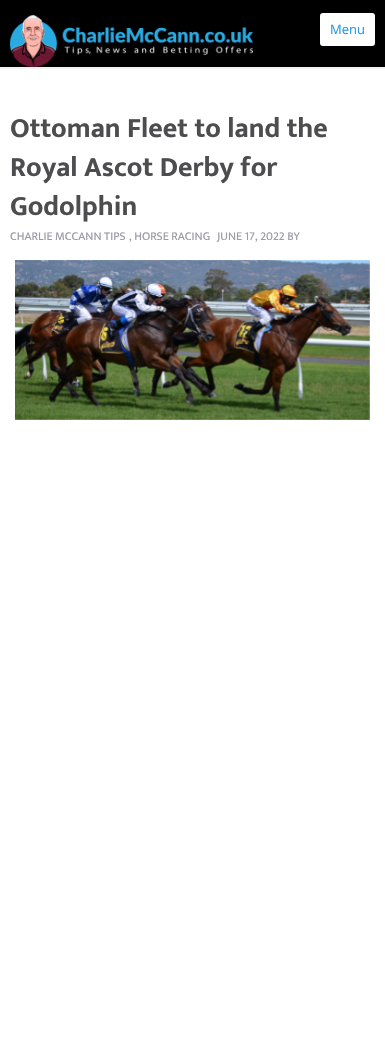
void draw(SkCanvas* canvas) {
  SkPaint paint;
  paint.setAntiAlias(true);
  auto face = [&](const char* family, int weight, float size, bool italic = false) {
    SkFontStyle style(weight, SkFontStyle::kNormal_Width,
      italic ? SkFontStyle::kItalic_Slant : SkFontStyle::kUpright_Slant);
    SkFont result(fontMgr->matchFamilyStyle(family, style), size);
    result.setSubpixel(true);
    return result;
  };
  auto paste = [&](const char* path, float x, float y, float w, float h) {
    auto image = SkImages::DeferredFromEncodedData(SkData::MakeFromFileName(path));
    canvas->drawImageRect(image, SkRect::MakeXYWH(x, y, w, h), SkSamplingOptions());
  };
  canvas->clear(0xffffffff);
  paint.setColor(0xfff2f2f2);
  canvas->drawRect(SkRect::MakeXYWH(0, 67, 385, 2), paint);
  paint.setColor(0xff000000);
  canvas->drawRect(SkRect::MakeXYWH(0, 0, 385, 67), paint);
  paste("img/1.png", 10, 15, 243, 52);
  paint.setColor(0xffffffff);
  canvas->drawRoundRect(SkRect::MakeXYWH(320, 13, 55, 33), 3, 3, paint);
  paste("img/2.png", 15, 260, 355, 160);
  auto f0 = face("Open Sans", 400, 13);
  paint.setColor(0xff2199e8);
  canvas->drawString("Menu", 330, 34, f0, paint);
  auto f1 = face("Ek Mukta", 700, 28);
  paint.setColor(0xff4d4d4f);
  {
    const struct { const char* s; float x, y; } items[] = {
      {"Ottoman Fleet to land the", 10, 137},
      {"Royal Ascot Derby for", 10, 176},
      {"Godolphin", 10, 215},
    };
    for (auto [s, x, y] : items) {
      canvas->drawString(s, x, y, f1, paint);
    }
  }
  auto f2 = face("Ek Mukta", 400, 12);
  paint.setColor(0xff9b9ba7);
  {
    const struct { const char* s; float x, y; } items[] = {
      {"CHARLIE MCCANN TIPS", 10, 240},
      {", HORSE RACING", 129, 240},
      {"JUNE 17, 2022 BY", 217, 240},
    };
    for (auto [s, x, y] : items) {
      canvas->drawString(s, x, y, f2, paint);
    }
  }
}
